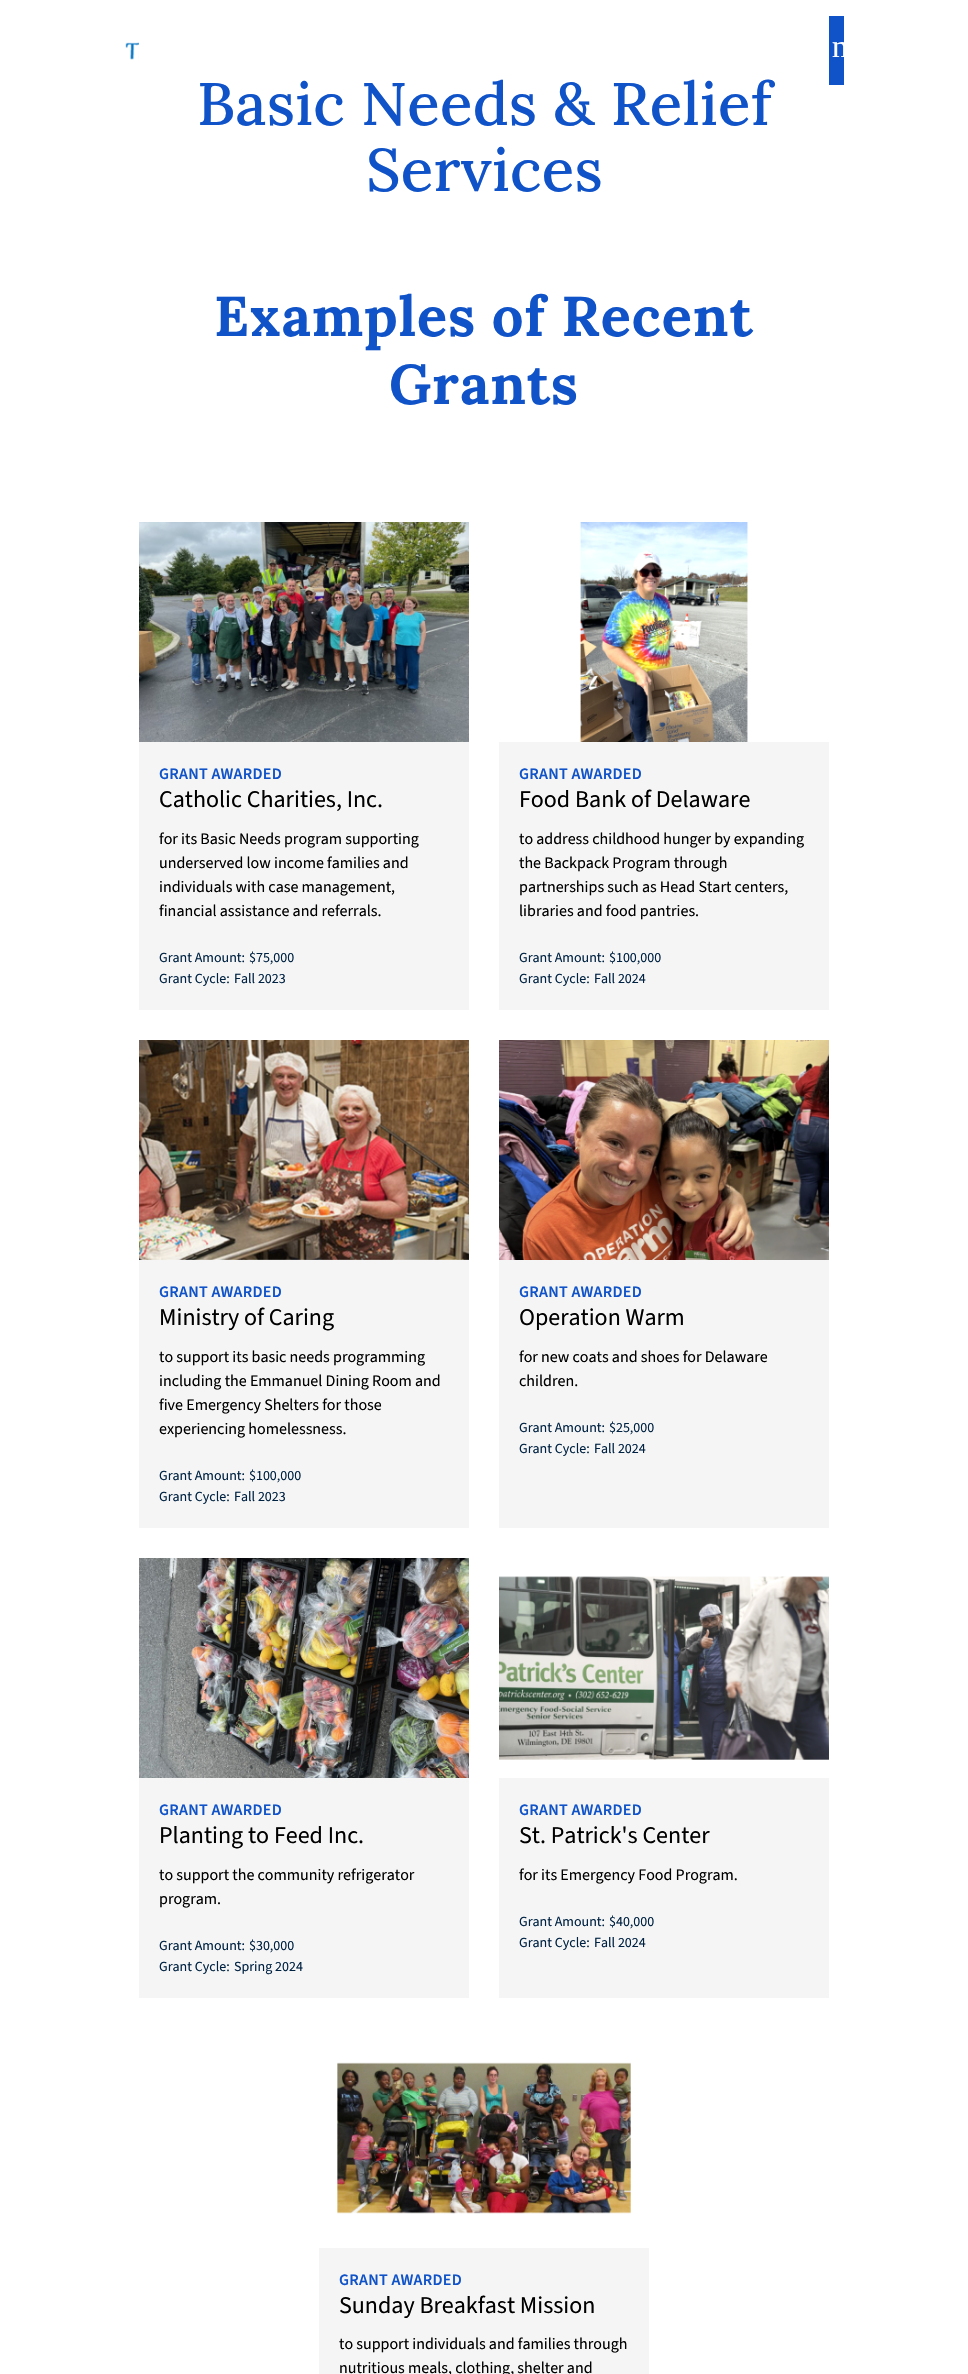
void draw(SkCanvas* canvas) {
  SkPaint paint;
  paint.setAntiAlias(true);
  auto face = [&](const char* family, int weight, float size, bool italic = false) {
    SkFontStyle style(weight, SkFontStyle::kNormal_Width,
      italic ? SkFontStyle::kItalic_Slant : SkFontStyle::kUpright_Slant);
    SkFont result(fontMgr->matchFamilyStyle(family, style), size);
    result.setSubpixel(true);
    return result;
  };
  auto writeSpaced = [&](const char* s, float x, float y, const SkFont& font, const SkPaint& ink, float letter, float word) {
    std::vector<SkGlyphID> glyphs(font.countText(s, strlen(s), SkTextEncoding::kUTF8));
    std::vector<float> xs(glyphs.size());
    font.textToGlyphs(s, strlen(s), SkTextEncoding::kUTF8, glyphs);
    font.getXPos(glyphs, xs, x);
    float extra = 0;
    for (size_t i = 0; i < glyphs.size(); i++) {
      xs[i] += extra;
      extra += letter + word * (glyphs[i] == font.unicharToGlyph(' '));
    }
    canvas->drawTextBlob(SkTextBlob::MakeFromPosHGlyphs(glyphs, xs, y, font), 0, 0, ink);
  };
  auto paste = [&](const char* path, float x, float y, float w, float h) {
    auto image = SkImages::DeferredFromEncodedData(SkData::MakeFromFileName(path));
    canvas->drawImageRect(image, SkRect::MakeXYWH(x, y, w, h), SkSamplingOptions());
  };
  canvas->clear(0xffffffff);
  paste("img/1.png", 125, 42, 14, 18);
  paint.setColor(0xff1053c9);
  canvas->drawRect(SkRect::MakeXYWH(829, 16, 15, 69), paint);
  paint.setColor(0xfff5f5f5);
  canvas->drawRect(SkRect::MakeXYWH(139, 742, 330, 268), paint);
  paste("img/2.png", 139, 522, 330, 220);
  canvas->drawRect(SkRect::MakeXYWH(499, 742, 330, 268), paint);
  paste("img/3.png", 499, 522, 330, 220);
  canvas->drawRect(SkRect::MakeXYWH(139, 1260, 330, 268), paint);
  paste("img/4.png", 139, 1040, 330, 220);
  canvas->drawRect(SkRect::MakeXYWH(499, 1260, 330, 268), paint);
  paste("img/5.png", 499, 1040, 330, 220);
  canvas->drawRect(SkRect::MakeXYWH(139, 1778, 330, 220), paint);
  paste("img/6.png", 139, 1558, 330, 220);
  canvas->drawRect(SkRect::MakeXYWH(499, 1778, 330, 220), paint);
  paste("img/7.png", 499, 1558, 330, 220);
  canvas->drawRect(SkRect::MakeXYWH(319, 2248, 330, 126), paint);
  paste("img/8.png", 319, 2028, 330, 220);
  auto f0 = face("Liberation Serif", 400, 32);
  paint.setColor(0xffffffff);
  canvas->drawString("n", 832, 57, f0, paint);
  auto f1 = face("Lora", 500, 60);
  paint.setColor(0xff1053c9);
  writeSpaced("Basic Needs & Relief", 197, 125, f1, paint, 0.25f, 0);
  writeSpaced("Services", 366, 191, f1, paint, 0.25f, 0);
  auto f2 = face("Lora", 700, 56);
  writeSpaced("Examples of Recent", 214, 336, f2, paint, 0.9f, 0);
  writeSpaced("Grants", 389, 404, f2, paint, 0.9f, 0);
  auto f3 = face("Source Sans 3", 600, 16);
  writeSpaced("GRANT AWARDED", 159, 779, f3, paint, 0.25f, 0);
  auto f4 = face("Source Sans 3", 400, 24);
  paint.setColor(0xff000000);
  canvas->drawString("Catholic Charities, Inc.", 159, 807, f4, paint);
  auto f5 = face("Source Sans 3", 400, 16);
  {
    const struct { const char* s; float x, y; } items[] = {
      {"for its Basic Needs program supporting", 159, 844},
      {"underserved low income families and", 159, 868},
      {"individuals with case management,", 159, 892},
      {"financial assistance and referrals.", 159, 916},
    };
    for (auto [s, x, y] : items) {
      canvas->drawString(s, x, y, f5, paint);
    }
  }
  auto f6 = face("Source Sans 3", 400, 14);
  paint.setColor(0xff002242);
  {
    const struct { const char* s; float x, y; } items[] = {
      {"Grant Amount:", 159, 962},
      {"$75,000", 249, 962},
      {"Grant Cycle:", 159, 983},
      {"Fall 2023", 234, 983},
    };
    for (auto [s, x, y] : items) {
      canvas->drawString(s, x, y, f6, paint);
    }
  }
  paint.setColor(0xff1053c9);
  writeSpaced("GRANT AWARDED", 519, 779, f3, paint, 0.25f, 0);
  paint.setColor(0xff000000);
  canvas->drawString("Food Bank of Delaware", 519, 807, f4, paint);
  {
    const struct { const char* s; float x, y; } items[] = {
      {"to address childhood hunger by expanding", 519, 844},
      {"the Backpack Program through", 519, 868},
      {"partnerships such as Head Start centers,", 519, 892},
      {"libraries and food pantries.", 519, 916},
    };
    for (auto [s, x, y] : items) {
      canvas->drawString(s, x, y, f5, paint);
    }
  }
  paint.setColor(0xff002242);
  {
    const struct { const char* s; float x, y; } items[] = {
      {"Grant Amount:", 519, 962},
      {"$100,000", 609, 962},
      {"Grant Cycle:", 519, 983},
      {"Fall 2024", 594, 983},
    };
    for (auto [s, x, y] : items) {
      canvas->drawString(s, x, y, f6, paint);
    }
  }
  paint.setColor(0xff1053c9);
  writeSpaced("GRANT AWARDED", 159, 1297, f3, paint, 0.25f, 0);
  paint.setColor(0xff000000);
  canvas->drawString("Ministry of Caring", 159, 1325, f4, paint);
  {
    const struct { const char* s; float x, y; } items[] = {
      {"to support its basic needs programming", 159, 1362},
      {"including the Emmanuel Dining Room and", 159, 1386},
      {"five Emergency Shelters for those", 159, 1410},
      {"experiencing homelessness.", 159, 1434},
    };
    for (auto [s, x, y] : items) {
      canvas->drawString(s, x, y, f5, paint);
    }
  }
  paint.setColor(0xff002242);
  {
    const struct { const char* s; float x, y; } items[] = {
      {"Grant Amount:", 159, 1480},
      {"$100,000", 249, 1480},
      {"Grant Cycle:", 159, 1501},
      {"Fall 2023", 234, 1501},
    };
    for (auto [s, x, y] : items) {
      canvas->drawString(s, x, y, f6, paint);
    }
  }
  paint.setColor(0xff1053c9);
  writeSpaced("GRANT AWARDED", 519, 1297, f3, paint, 0.25f, 0);
  paint.setColor(0xff000000);
  canvas->drawString("Operation Warm", 519, 1325, f4, paint);
  canvas->drawString("for new coats and shoes for Delaware", 519, 1362, f5, paint);
  canvas->drawString("children.", 519, 1386, f5, paint);
  paint.setColor(0xff002242);
  {
    const struct { const char* s; float x, y; } items[] = {
      {"Grant Amount:", 519, 1432},
      {"$25,000", 609, 1432},
      {"Grant Cycle:", 519, 1453},
      {"Fall 2024", 594, 1453},
    };
    for (auto [s, x, y] : items) {
      canvas->drawString(s, x, y, f6, paint);
    }
  }
  paint.setColor(0xff1053c9);
  writeSpaced("GRANT AWARDED", 159, 1815, f3, paint, 0.25f, 0);
  paint.setColor(0xff000000);
  canvas->drawString("Planting to Feed Inc.", 159, 1843, f4, paint);
  canvas->drawString("to support the community refrigerator", 159, 1880, f5, paint);
  canvas->drawString("program.", 159, 1904, f5, paint);
  paint.setColor(0xff002242);
  {
    const struct { const char* s; float x, y; } items[] = {
      {"Grant Amount:", 159, 1950},
      {"$30,000", 249, 1950},
      {"Grant Cycle:", 159, 1971},
      {"Spring 2024", 234, 1971},
    };
    for (auto [s, x, y] : items) {
      canvas->drawString(s, x, y, f6, paint);
    }
  }
  paint.setColor(0xff1053c9);
  writeSpaced("GRANT AWARDED", 519, 1815, f3, paint, 0.25f, 0);
  paint.setColor(0xff000000);
  canvas->drawString("St. Patrick's Center", 519, 1843, f4, paint);
  canvas->drawString("for its Emergency Food Program.", 519, 1880, f5, paint);
  paint.setColor(0xff002242);
  {
    const struct { const char* s; float x, y; } items[] = {
      {"Grant Amount:", 519, 1926},
      {"$40,000", 609, 1926},
      {"Grant Cycle:", 519, 1947},
      {"Fall 2024", 594, 1947},
    };
    for (auto [s, x, y] : items) {
      canvas->drawString(s, x, y, f6, paint);
    }
  }
  paint.setColor(0xff1053c9);
  writeSpaced("GRANT AWARDED", 339, 2285, f3, paint, 0.25f, 0);
  paint.setColor(0xff000000);
  canvas->drawString("Sunday Breakfast Mission", 339, 2313, f4, paint);
  canvas->drawString("to support individuals and families through", 339, 2349, f5, paint);
  canvas->drawString("nutritious meals, clothing, shelter and", 339, 2373, f5, paint);
}
